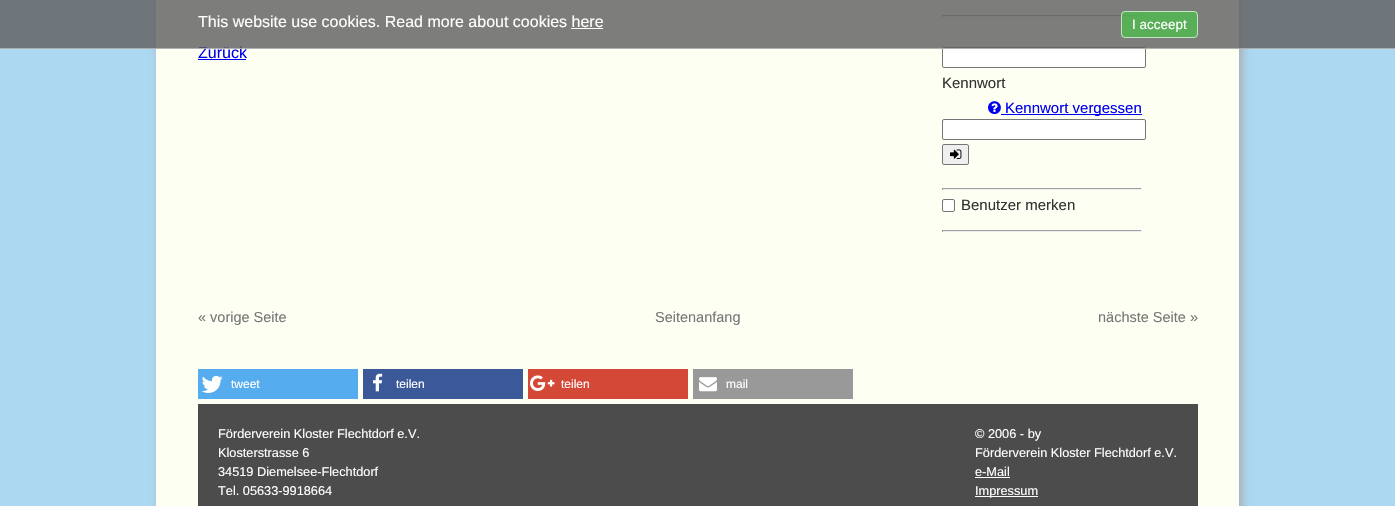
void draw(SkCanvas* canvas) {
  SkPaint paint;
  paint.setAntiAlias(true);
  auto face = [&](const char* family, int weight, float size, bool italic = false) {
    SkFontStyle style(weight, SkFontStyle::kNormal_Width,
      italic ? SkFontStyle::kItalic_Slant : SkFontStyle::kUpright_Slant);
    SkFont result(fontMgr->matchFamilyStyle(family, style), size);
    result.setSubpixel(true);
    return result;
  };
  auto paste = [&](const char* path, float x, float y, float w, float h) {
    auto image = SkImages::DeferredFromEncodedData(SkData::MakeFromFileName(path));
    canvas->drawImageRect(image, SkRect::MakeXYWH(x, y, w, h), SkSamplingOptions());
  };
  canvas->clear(0xffacd8f2);
  paint.setColor(0xffaaaaaa);
  paint.setMaskFilter(SkMaskFilter::MakeBlur(kNormal_SkBlurStyle, 5));
  canvas->drawRoundRect(SkRect::MakeXYWH(159, -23, 1083, 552), 8, 8, paint);
  paint.setMaskFilter(nullptr);
  {
    const struct { float x, y, w, h; SkColor color; } items[] = {
      {156, 0, 1083, 506, 0xfffefff3},
      {198, 59, 48, 1, 0xff0000ee},
      {942, 15, 200, 1, 0xff9f9f9f},
      {1141, 15, 1, 2, 0xffeeeeee},
      {942, 16, 200, 1, 0xffeeeeee},
      {942, 15, 1, 2, 0xff9f9f9f},
    };
    for (auto [x, y, w, h, color] : items) {
      paint.setColor(color);
      canvas->drawRect(SkRect::MakeXYWH(x, y, w, h), paint);
    }
  }
  paint.setColor(0xffffffff);
  canvas->drawRoundRect(SkRect::MakeXYWH(942.5f, 47.5f, 203, 20), 1.5f, 1.5f, paint);
  paint.setStroke(true);
  paint.setStrokeWidth(1);
  paint.setColor(0xff767676);
  canvas->drawRoundRect(SkRect::MakeXYWH(942.5f, 47.5f, 203, 20), 1.5f, 1.5f, paint);
  paste("img/1.png", 988, 101, 13, 14);
  paint.setStroke(false);
  paint.setColor(0xff0000ee);
  canvas->drawRect(SkRect::MakeXYWH(1001, 114, 141, 1), paint);
  paint.setColor(0xffffffff);
  canvas->drawRoundRect(SkRect::MakeXYWH(942.5f, 119.5f, 203, 20), 1.5f, 1.5f, paint);
  paint.setStroke(true);
  paint.setColor(0xff767676);
  canvas->drawRoundRect(SkRect::MakeXYWH(942.5f, 119.5f, 203, 20), 1.5f, 1.5f, paint);
  paint.setStroke(false);
  paint.setColor(0xffefefef);
  canvas->drawRoundRect(SkRect::MakeXYWH(942.5f, 144.5f, 26, 20), 1.5f, 1.5f, paint);
  paint.setStroke(true);
  paint.setColor(0xff767676);
  canvas->drawRoundRect(SkRect::MakeXYWH(942.5f, 144.5f, 26, 20), 1.5f, 1.5f, paint);
  paste("img/2.png", 950, 149, 12, 10);
  paint.setStroke(false);
  {
    const struct { float x, y, w, h; SkColor color; } items[] = {
      {942, 188, 200, 1, 0xff9f9f9f},
      {1141, 188, 1, 2, 0xffeeeeee},
      {942, 189, 200, 1, 0xffeeeeee},
      {942, 188, 1, 2, 0xff9f9f9f},
    };
    for (auto [x, y, w, h, color] : items) {
      paint.setColor(color);
      canvas->drawRect(SkRect::MakeXYWH(x, y, w, h), paint);
    }
  }
  paint.setColor(0xffffffff);
  canvas->drawRoundRect(SkRect::MakeXYWH(942.5f, 199.5f, 12, 12), 1.5f, 1.5f, paint);
  paint.setStroke(true);
  paint.setColor(0xff767676);
  canvas->drawRoundRect(SkRect::MakeXYWH(942.5f, 199.5f, 12, 12), 1.5f, 1.5f, paint);
  paint.setStroke(false);
  {
    const struct { float x, y, w, h; SkColor color; } items[] = {
      {942, 230, 200, 1, 0xff9f9f9f},
      {1141, 230, 1, 2, 0xffeeeeee},
      {942, 231, 200, 1, 0xffeeeeee},
      {942, 230, 1, 2, 0xff9f9f9f},
      {198, 369, 160, 30, 0xff55acee},
    };
    for (auto [x, y, w, h, color] : items) {
      paint.setColor(color);
      canvas->drawRect(SkRect::MakeXYWH(x, y, w, h), paint);
    }
  }
  paste("img/3.png", 201, 375, 22, 18);
  paint.setColor(0xff3b5998);
  canvas->drawRect(SkRect::MakeXYWH(363, 369, 160, 30), paint);
  paste("img/4.png", 373, 373, 10, 19);
  paint.setColor(0xffd34836);
  canvas->drawRect(SkRect::MakeXYWH(528, 369, 160, 30), paint);
  paste("img/5.png", 530, 375, 25, 16);
  paint.setColor(0xff999999);
  canvas->drawRect(SkRect::MakeXYWH(693, 369, 160, 30), paint);
  paste("img/6.png", 699, 377, 18, 15);
  {
    const struct { float x, y, w, h; SkColor color; } items[] = {
      {198, 404, 1000, 102, 0xff4c4c4c},
      {975, 477, 35, 1, 0xffffffff},
      {975, 496, 63, 1, 0xffffffff},
    };
    for (auto [x, y, w, h, color] : items) {
      paint.setColor(color);
      canvas->drawRect(SkRect::MakeXYWH(x, y, w, h), paint);
    }
  }
  auto f0 = face("Liberation Sans", 400, 16);
  paint.setColor(0xff0000ee);
  canvas->drawString("Zurück", 198, 58, f0, paint);
  paint.setColor(0xd1606060);
  canvas->drawRect(SkRect::MakeXYWH(0, 0, 1395, 49), paint);
  paint.setColor(0xffffffff);
  canvas->drawRect(SkRect::MakeXYWH(571, 28, 32, 1), paint);
  canvas->drawString("This website use cookies. Read more about cookies here", 198, 27, f0, paint);
  paint.setColor(0xa643ca43);
  canvas->drawRoundRect(SkRect::MakeXYWH(1121, 11, 77, 27), 4, 4, paint);
  paint.setStroke(true);
  paint.setColor(0xa6ffffff);
  canvas->drawRoundRect(SkRect::MakeXYWH(1121.5f, 11.5f, 76, 26), 3.5f, 3.5f, paint);
  auto f1 = face("Liberation Sans", 400, 13.5f);
  paint.setStroke(false);
  paint.setColor(0xffffffff);
  canvas->drawString("I acceept", 1132, 29, f1, paint);
  paint.setColor(0xbac3c3c3);
  canvas->drawRect(SkRect::MakeXYWH(0, 48, 1395, 1), paint);
  auto f2 = face("Liberation Sans", 400, 15);
  paint.setColor(0xff333333);
  canvas->drawString("Kennwort", 942, 88, f2, paint);
  paint.setColor(0xff0000ee);
  canvas->drawString("Kennwort vergessen", 1005, 113, f2, paint);
  paint.setColor(0xff333333);
  canvas->drawString("Benutzer merken", 961, 210, f2, paint);
  auto f3 = face("Liberation Sans", 400, 14.5f);
  paint.setColor(0xff777777);
  {
    const struct { const char* s; float x, y; } items[] = {
      {"« vorige Seite", 198, 322},
      {"Seitenanfang", 655, 322},
      {"nächste Seite »", 1098, 322},
    };
    for (auto [s, x, y] : items) {
      canvas->drawString(s, x, y, f3, paint);
    }
  }
  auto f4 = face("Liberation Sans", 400, 12);
  paint.setColor(0xffffffff);
  {
    const struct { const char* s; float x, y; } items[] = {
      {"tweet", 231, 388},
      {"teilen", 396, 388},
      {"teilen", 561, 388},
      {"mail", 726, 388},
    };
    for (auto [s, x, y] : items) {
      canvas->drawString(s, x, y, f4, paint);
    }
  }
  auto f5 = face("Liberation Sans", 400, 12.75f);
  {
    const struct { const char* s; float x, y; } items[] = {
      {"Förderverein Kloster Flechtdorf e.V.", 218, 438},
      {"Klosterstrasse 6", 218, 457},
      {"34519 Diemelsee-Flechtdorf", 218, 476},
      {"Tel. 05633-9918664", 218, 495},
      {"© 2006 - by", 975, 438},
      {"Förderverein Kloster Flechtdorf e.V.", 975, 457},
      {"e-Mail", 975, 476},
      {"Impressum", 975, 495},
    };
    for (auto [s, x, y] : items) {
      canvas->drawString(s, x, y, f5, paint);
    }
  }
}
